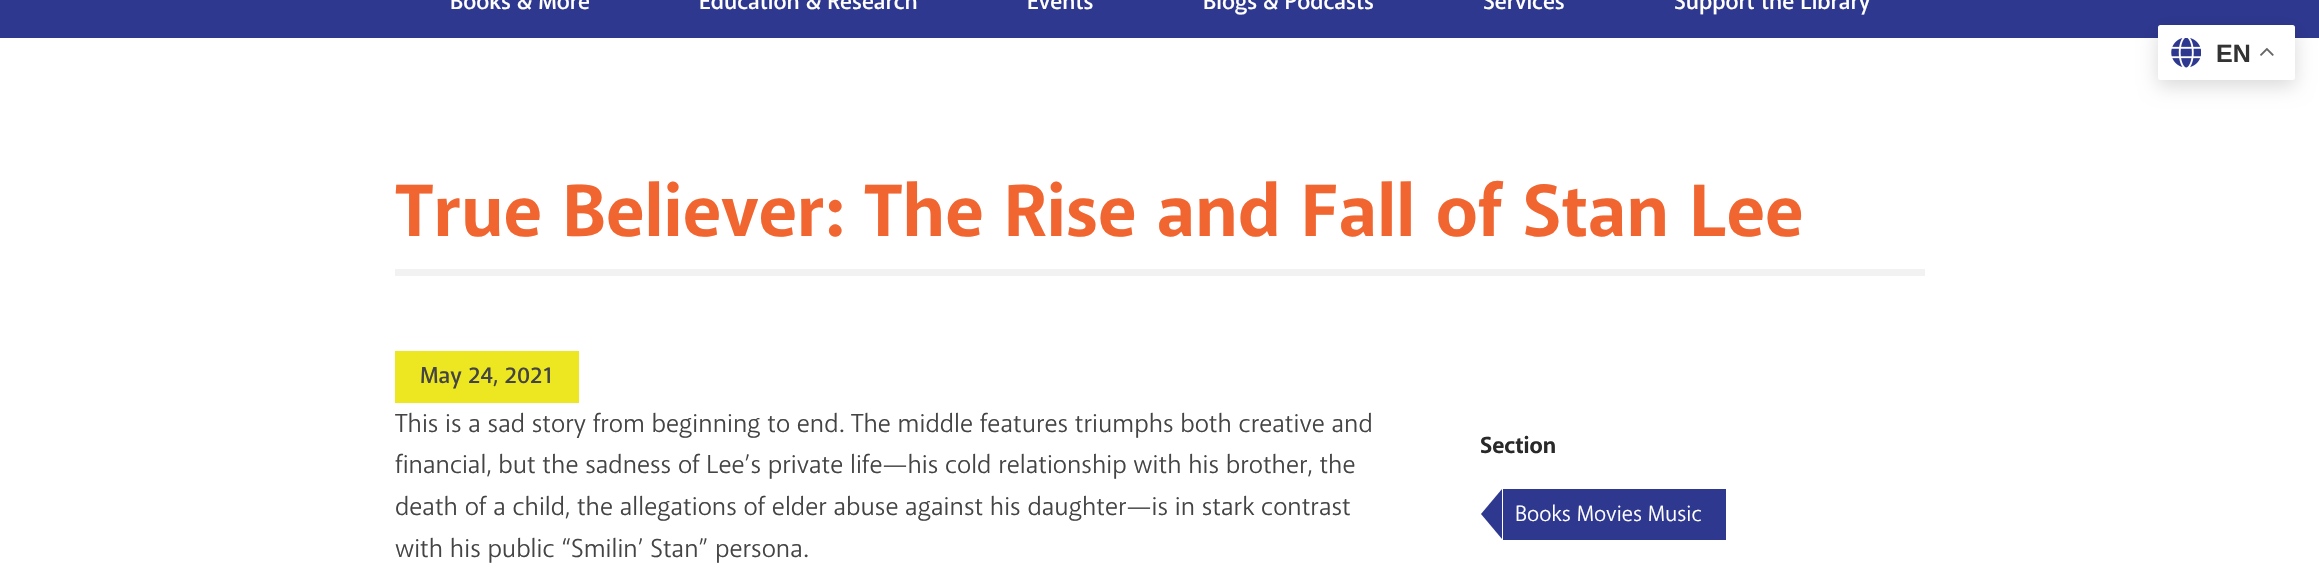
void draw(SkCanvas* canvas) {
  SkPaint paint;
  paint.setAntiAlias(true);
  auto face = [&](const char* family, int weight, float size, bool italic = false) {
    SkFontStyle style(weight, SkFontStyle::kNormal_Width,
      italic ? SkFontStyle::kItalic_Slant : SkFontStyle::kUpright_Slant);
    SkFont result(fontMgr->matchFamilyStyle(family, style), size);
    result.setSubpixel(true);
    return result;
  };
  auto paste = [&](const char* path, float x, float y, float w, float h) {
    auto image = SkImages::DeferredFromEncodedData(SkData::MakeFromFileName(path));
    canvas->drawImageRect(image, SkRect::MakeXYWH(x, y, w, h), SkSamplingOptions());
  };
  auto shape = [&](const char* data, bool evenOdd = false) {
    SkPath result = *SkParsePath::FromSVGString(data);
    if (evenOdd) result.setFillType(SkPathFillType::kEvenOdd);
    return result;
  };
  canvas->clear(0xffffffff);
  paint.setColor(0xff2e388f);
  canvas->drawRect(SkRect::MakeXYWH(0, 0, 2319, 38), paint);
  paint.setColor(0x26000000);
  paint.setMaskFilter(SkMaskFilter::MakeBlur(kNormal_SkBlurStyle, 9.5f));
  canvas->drawRoundRect(SkRect::MakeXYWH(2158, 31, 137, 55), 2.5f, 2.5f, paint);
  paint.setMaskFilter(nullptr);
  paint.setColor(0xffffffff);
  canvas->drawRoundRect(SkRect::MakeXYWH(2158, 25, 137, 55), 2.5f, 2.5f, paint);
  paste("img/1.png", 2171, 38, 30, 30);
  paste("img/2.png", 2260, 47, 14, 9);
  {
    const struct { float x, y, w, h; SkColor color; } items[] = {
      {395, 269, 1530, 7, 0xfff2f2f2},
      {395, 351, 184, 52, 0xffede721},
      {1503, 489, 223, 51, 0xff2e388f},
    };
    for (auto [x, y, w, h, color] : items) {
      paint.setColor(color);
      canvas->drawRect(SkRect::MakeXYWH(x, y, w, h), paint);
    }
  }
  canvas->drawPath(shape("M1502 489V539L1481 514Z"), paint);
  auto f0 = face("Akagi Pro", 600, 23.6f);
  paint.setColor(0xffffffff);
  {
    const struct { const char* s; float x, y; } items[] = {
      {"Books & More", 450, 9},
      {"Education & Research", 699, 9},
      {"Events", 1027, 9},
      {"Blogs & Podcasts", 1203, 9},
      {"Services", 1483, 9},
      {"Support the Library", 1674, 9},
    };
    for (auto [s, x, y] : items) {
      canvas->drawString(s, x, y, f0, paint);
    }
  }
  auto f1 = face("Liberation Sans", 700, 25);
  paint.setColor(0xff333333);
  canvas->drawString("EN", 2216, 62, f1, paint);
  auto f2 = face("Akagi Pro", 700, 75);
  paint.setColor(0xfff16530);
  canvas->drawString("True Believer: The Rise and Fall of Stan Lee", 395, 236, f2, paint);
  paint.setColor(0xff444444);
  canvas->drawString("May 24, 2021", 420, 383, f0, paint);
  auto f3 = face("Akagi Pro", 400, 26.25f);
  {
    const struct { const char* s; float x, y; } items[] = {
      {"This is a sad story from beginning to end. The middle features triumphs both creative and", 395, 432},
      {"financial, but the sadness of Lee’s private life—his cold relationship with his brother, the", 395, 473},
      {"death of a child, the allegations of elder abuse against his daughter—is in stark contrast", 395, 515},
      {"with his public “Smilin’ Stan” persona.", 395, 557},
    };
    for (auto [s, x, y] : items) {
      canvas->drawString(s, x, y, f3, paint);
    }
  }
  auto f4 = face("Akagi Pro", 700, 23.6f);
  paint.setColor(0xff292929);
  canvas->drawString("Section", 1480, 453, f4, paint);
  auto f5 = face("Akagi Pro", 400, 22.5f);
  paint.setColor(0xffffffff);
  canvas->drawString("Books Movies Music", 1515, 521, f5, paint);
}
